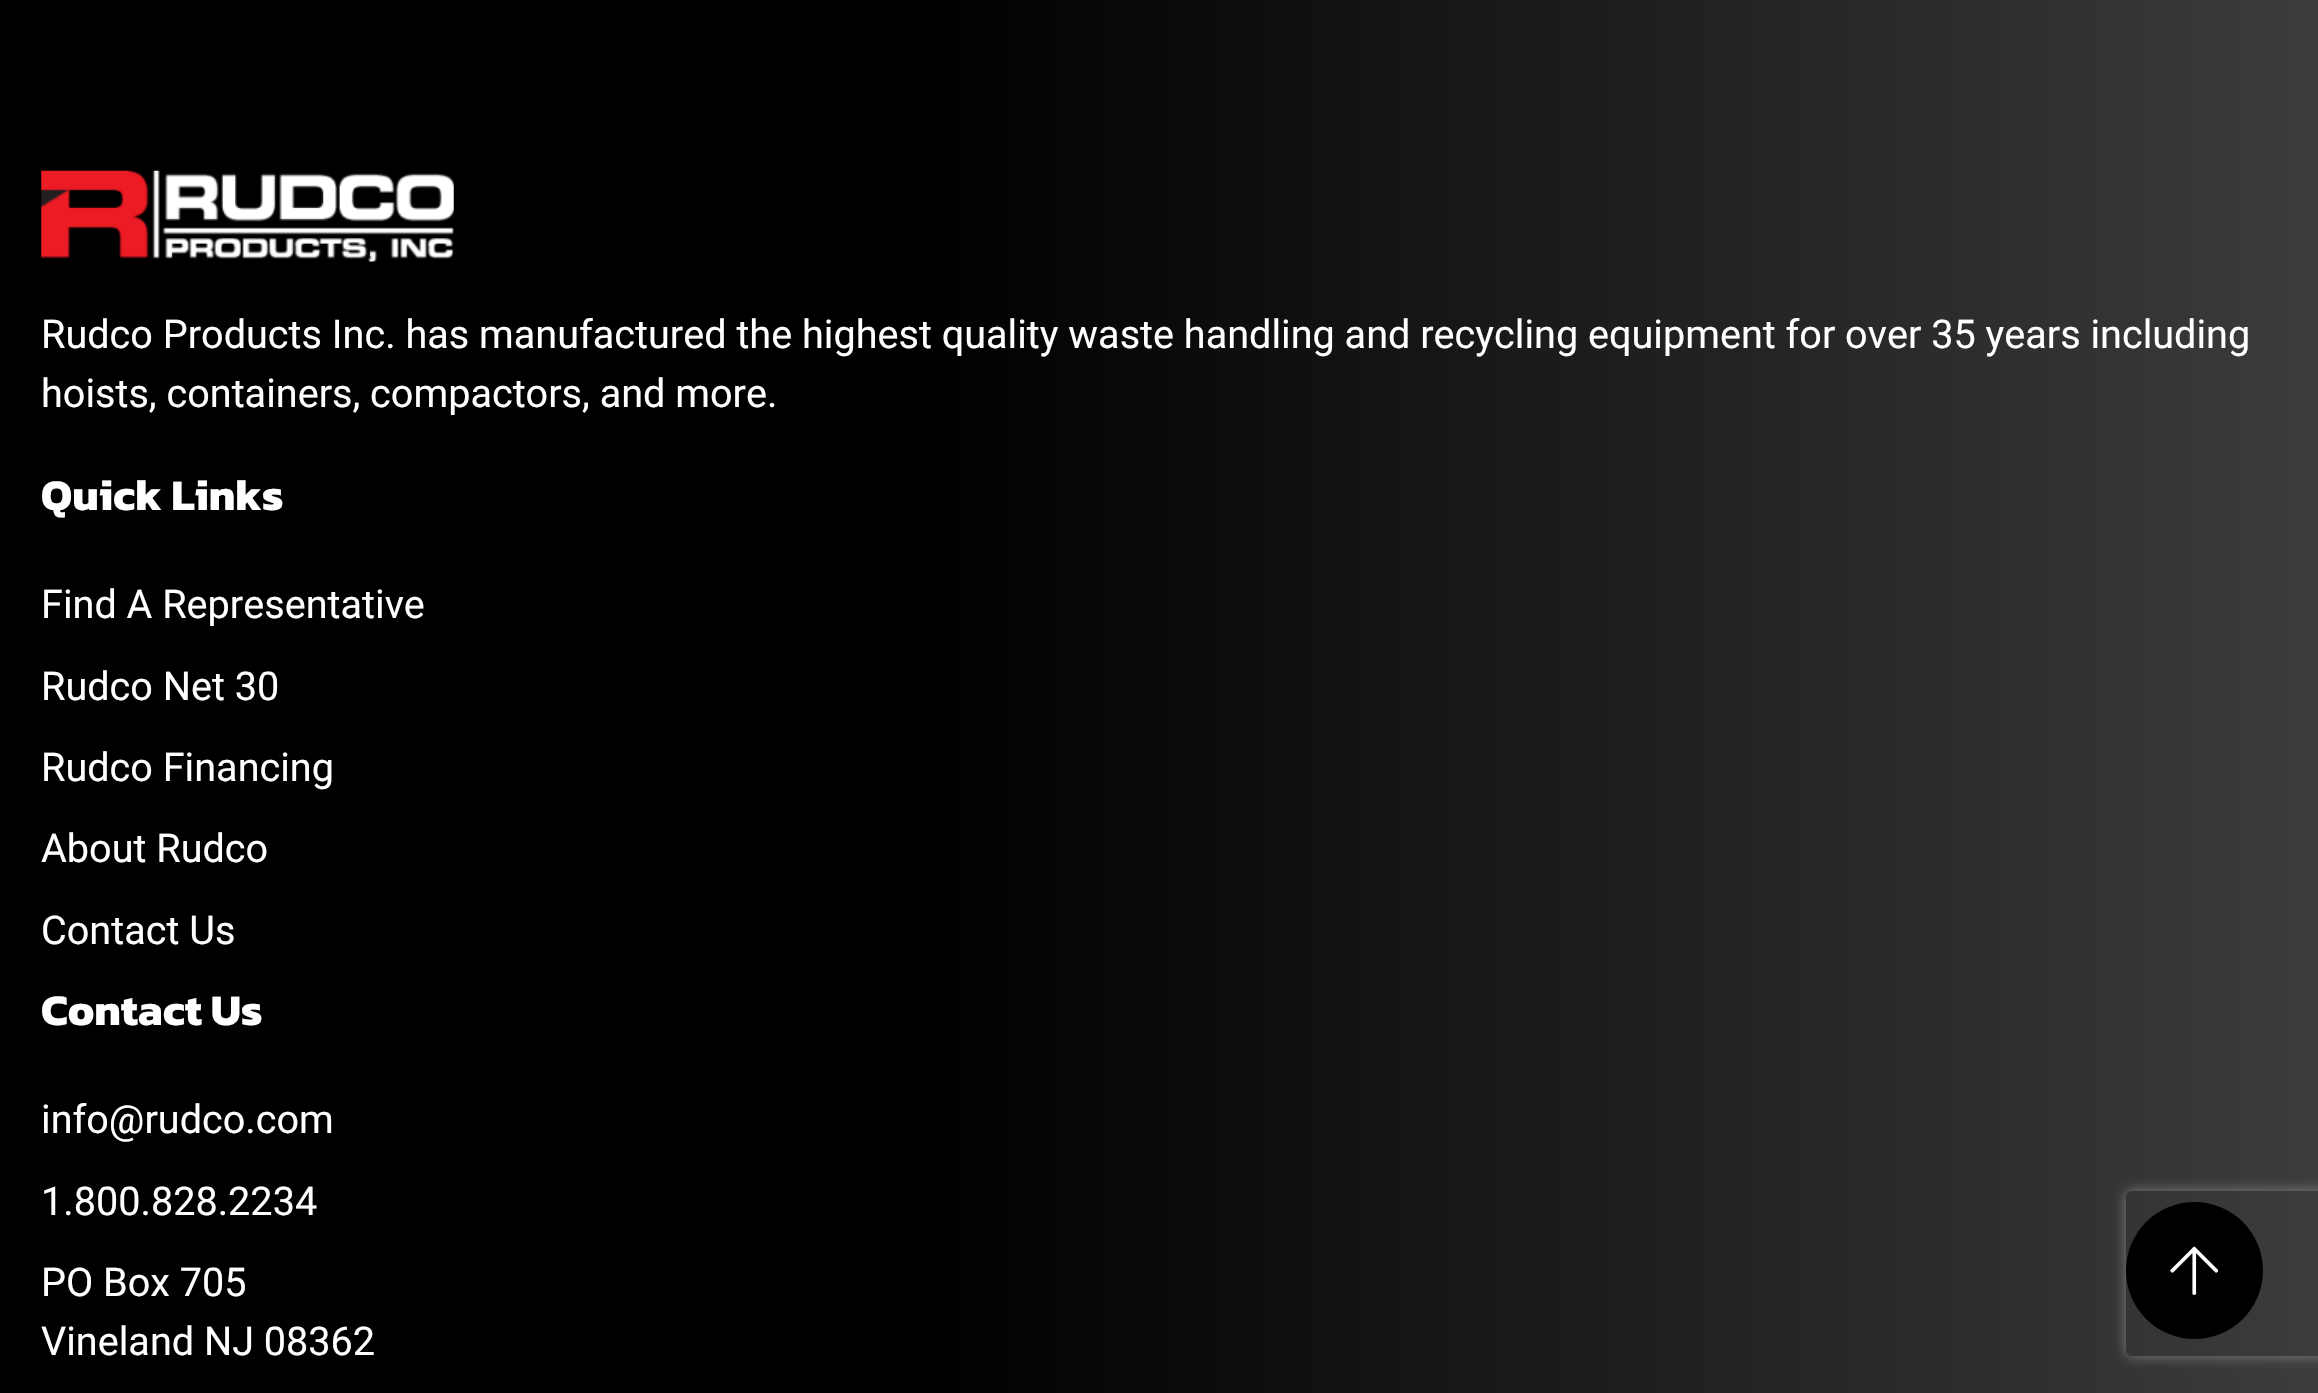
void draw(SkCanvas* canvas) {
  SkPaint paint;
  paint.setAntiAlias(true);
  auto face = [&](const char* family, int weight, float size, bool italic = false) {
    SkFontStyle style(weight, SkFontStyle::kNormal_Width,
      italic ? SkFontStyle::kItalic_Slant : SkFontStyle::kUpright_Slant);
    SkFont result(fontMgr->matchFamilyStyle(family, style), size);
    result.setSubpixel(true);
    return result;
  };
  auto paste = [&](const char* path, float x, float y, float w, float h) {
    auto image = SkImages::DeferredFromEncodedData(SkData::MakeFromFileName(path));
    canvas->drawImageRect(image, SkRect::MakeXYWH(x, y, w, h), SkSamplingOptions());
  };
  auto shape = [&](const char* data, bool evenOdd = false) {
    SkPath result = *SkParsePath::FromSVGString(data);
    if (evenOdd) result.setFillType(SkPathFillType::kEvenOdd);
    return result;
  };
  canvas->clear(0xffffffff);
  {
    const SkColor colors[] = {0xff000000, 0xff000000, 0xff3c3c3c};
    const float stops[] = {0, 0.4f, 1};
    const SkPoint ends[] = {{0, 978}, {2318, 978}};
    paint.setShader(SkGradientShader::MakeLinear(ends, colors, stops, 3, SkTileMode::kClamp));
    paint.setAlpha(255);
  }
  canvas->drawRect(SkRect::MakeXYWH(0, 0, 2318, 1393), paint);
  paste("img/1.png", 41, 170, 413, 92);
  canvas->save();
  canvas->clipPath(shape("M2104 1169H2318V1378H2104ZM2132 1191H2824C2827.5 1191 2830 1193.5 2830 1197V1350C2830 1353.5 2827.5 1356 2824 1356H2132C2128.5 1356 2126 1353.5 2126 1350V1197C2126 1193.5 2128.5 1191 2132 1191Z", true), true);
  paint.setShader(nullptr);
  paint.setColor(0xff808080);
  paint.setMaskFilter(SkMaskFilter::MakeBlur(kNormal_SkBlurStyle, 7));
  canvas->drawRoundRect(SkRect::MakeXYWH(2126, 1191, 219, 165), 6, 6, paint);
  paint.setMaskFilter(nullptr);
  canvas->restore();
  paint.setColor(0xff000000);
  canvas->drawCircle(2194.5f, 1270.5f, 68.5f, paint);
  paste("img/2.png", 2170, 1246, 49, 49);
  auto f0 = face("Roboto", 400, 39.6f);
  paint.setColor(0xffffffff);
  canvas->drawString("Rudco Products Inc. has manufactured the highest quality waste handling and recycling equipment for over 35 years including", 41, 348, f0, paint);
  canvas->drawString("hoists, containers, compactors, and more.", 41, 407, f0, paint);
  auto f1 = face("Kanit", 700, 44);
  canvas->drawString("Quick Links", 41, 510, f1, paint);
  {
    const struct { const char* s; float x, y; } items[] = {
      {"Find A Representative", 41, 618},
      {"Rudco Net 30", 41, 700},
      {"Rudco Financing", 41, 781},
      {"About Rudco", 41, 862},
      {"Contact Us", 41, 944},
    };
    for (auto [s, x, y] : items) {
      canvas->drawString(s, x, y, f0, paint);
    }
  }
  canvas->drawString("Contact Us", 41, 1025, f1, paint);
  {
    const struct { const char* s; float x, y; } items[] = {
      {"info@rudco.com", 41, 1133},
      {"1.800.828.2234", 41, 1215},
      {"PO Box 705", 41, 1296},
      {"Vineland NJ 08362", 41, 1355},
    };
    for (auto [s, x, y] : items) {
      canvas->drawString(s, x, y, f0, paint);
    }
  }
}
